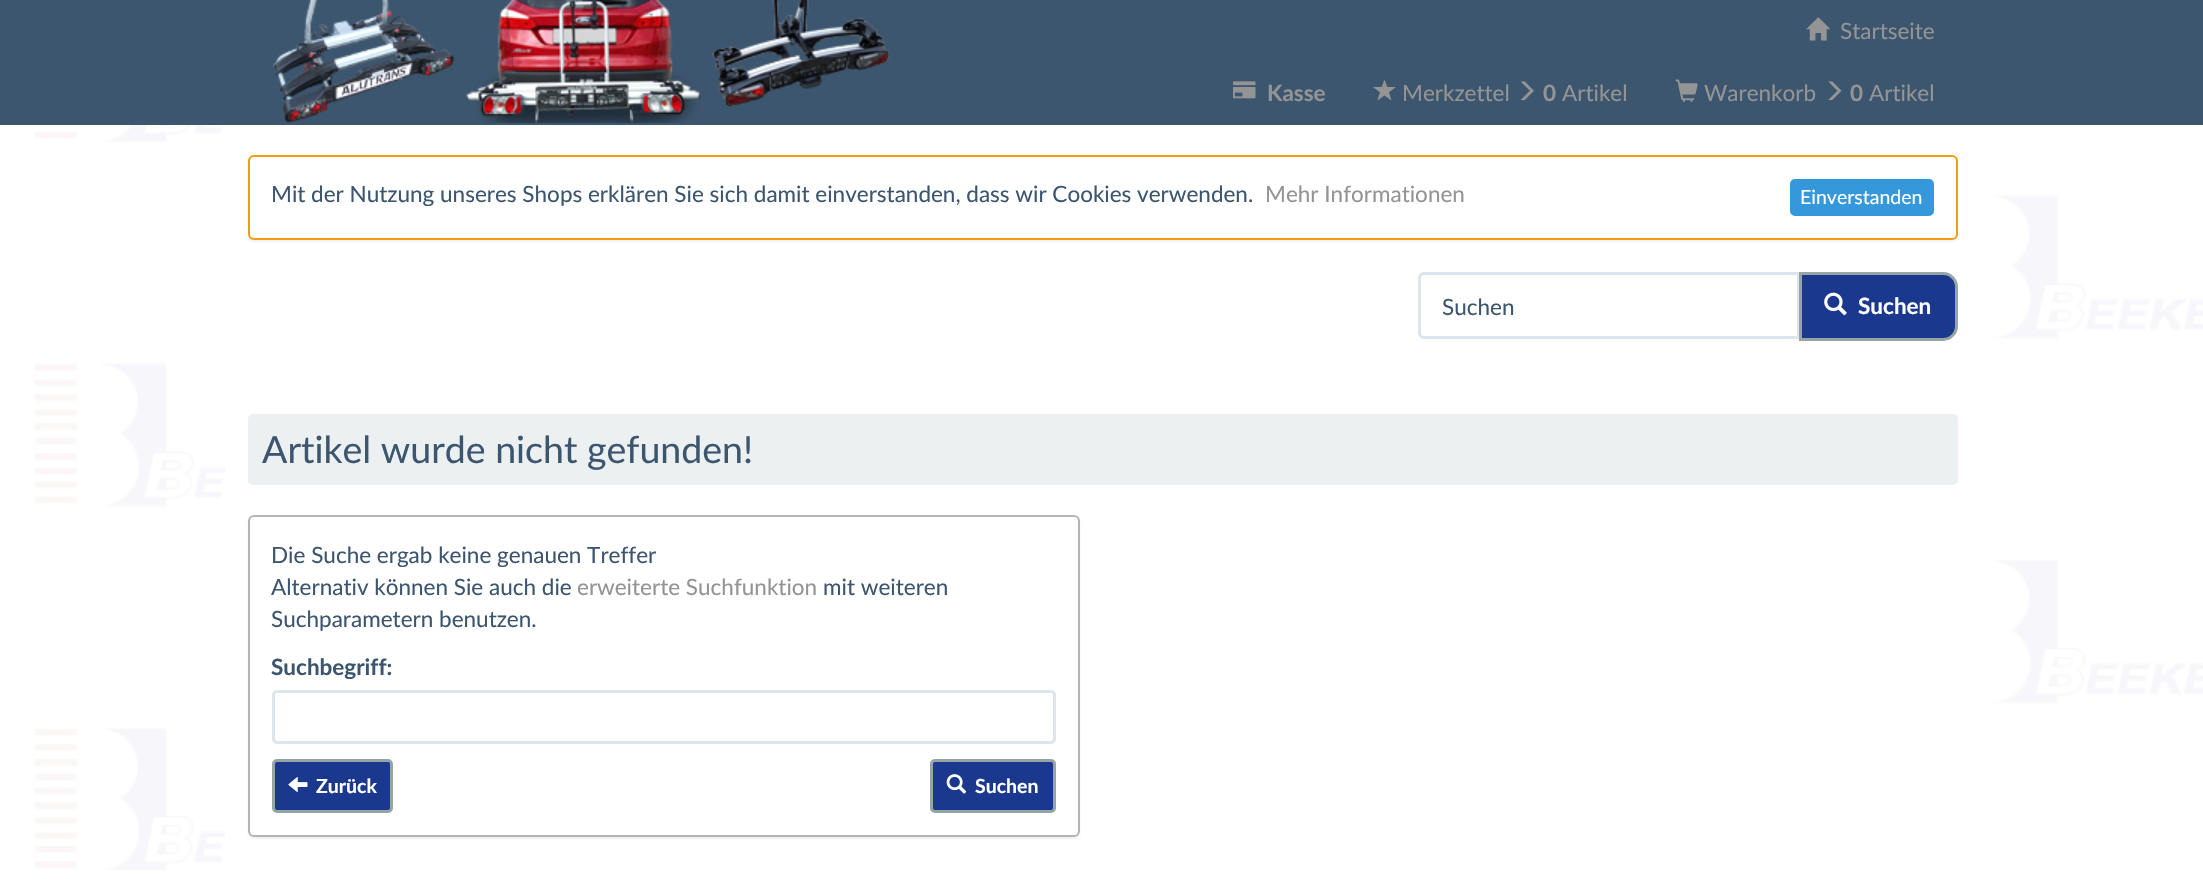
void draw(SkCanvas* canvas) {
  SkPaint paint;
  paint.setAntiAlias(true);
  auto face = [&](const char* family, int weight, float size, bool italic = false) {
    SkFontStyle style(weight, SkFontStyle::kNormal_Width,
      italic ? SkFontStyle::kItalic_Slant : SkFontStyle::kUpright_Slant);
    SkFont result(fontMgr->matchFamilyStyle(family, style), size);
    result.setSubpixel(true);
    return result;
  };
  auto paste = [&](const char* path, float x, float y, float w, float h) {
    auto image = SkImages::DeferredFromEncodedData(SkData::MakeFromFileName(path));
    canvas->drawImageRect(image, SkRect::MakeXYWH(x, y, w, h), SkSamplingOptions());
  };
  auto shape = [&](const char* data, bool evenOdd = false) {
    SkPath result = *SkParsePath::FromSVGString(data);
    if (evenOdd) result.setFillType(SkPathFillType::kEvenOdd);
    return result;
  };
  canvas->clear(0xffffffff);
  paste("img/1.png", 35, 125, 2168, 745);
  paint.setColor(0xff3d566f);
  canvas->drawRect(SkRect::MakeXYWH(0, 0, 2203, 125), paint);
  paste("img/2.png", 272, 0, 618, 123);
  paste("img/3.png", 1806, 17, 24, 24);
  paste("img/4.png", 1233, 81, 23, 18);
  paste("img/5.png", 1373, 80, 23, 21);
  paste("img/6.png", 1521, 81, 13, 20);
  paste("img/7.png", 1675, 79, 23, 23);
  paste("img/8.png", 1828, 81, 14, 20);
  paint.setColor(0xffffffff);
  canvas->drawRect(SkRect::MakeXYWH(225, 125, 1744, 745), paint);
  paint.setColor(0x0d000000);
  paint.setMaskFilter(SkMaskFilter::MakeBlur(kNormal_SkBlurStyle, 1));
  canvas->drawRoundRect(SkRect::MakeXYWH(248, 156, 1710, 86), 6, 6, paint);
  paint.setMaskFilter(nullptr);
  paint.setColor(0xffffffff);
  canvas->drawRoundRect(SkRect::MakeXYWH(249, 156, 1708, 83), 5, 5, paint);
  paint.setStroke(true);
  paint.setStrokeWidth(2);
  paint.setColor(0xfff39c12);
  canvas->drawRoundRect(SkRect::MakeXYWH(249, 156, 1708, 83), 5, 5, paint);
  paint.setStroke(false);
  paint.setColor(0xff3498db);
  canvas->drawRoundRect(SkRect::MakeXYWH(1791.5f, 180.5f, 141, 34), 3.5f, 3.5f, paint);
  paint.setStroke(true);
  paint.setStrokeWidth(3);
  canvas->drawRoundRect(SkRect::MakeXYWH(1791.5f, 180.5f, 141, 34), 3.5f, 3.5f, paint);
  paint.setColor(0xffdce4ec);
  canvas->drawPath(shape("M1424 273.5H1798.5V337.5H1424C1421.5 337.5 1419.5 335.5 1419.5 333V278C1419.5 275.5 1421.5 273.5 1424 273.5Z"), paint);
  paint.setStroke(false);
  paint.setColor(0xff1a388e);
  canvas->drawPath(shape("M1800.5 273.5H1943C1950.5 273.5 1956.5 279.5 1956.5 287V326C1956.5 333.5 1950.5 339.5 1943 339.5H1800.5Z"), paint);
  paint.setStroke(true);
  paint.setColor(0xff95a5a6);
  canvas->drawPath(shape("M1800.5 273.5H1943C1950.5 273.5 1956.5 279.5 1956.5 287V326C1956.5 333.5 1950.5 339.5 1943 339.5H1800.5Z"), paint);
  paste("img/9.png", 1824, 292, 23, 24);
  paint.setStroke(false);
  paint.setColor(0xffecf0f1);
  canvas->drawRoundRect(SkRect::MakeXYWH(248, 414, 1710, 71), 5, 5, paint);
  paint.setColor(0x0d000000);
  paint.setMaskFilter(SkMaskFilter::MakeBlur(kNormal_SkBlurStyle, 1));
  canvas->drawRoundRect(SkRect::MakeXYWH(248, 516, 832, 323), 6, 6, paint);
  paint.setMaskFilter(nullptr);
  paint.setColor(0xffffffff);
  canvas->drawRoundRect(SkRect::MakeXYWH(249, 516, 830, 320), 5, 5, paint);
  paint.setStroke(true);
  paint.setStrokeWidth(2);
  paint.setColor(0xffb5b5b5);
  canvas->drawRoundRect(SkRect::MakeXYWH(249, 516, 830, 320), 5, 5, paint);
  paint.setStrokeWidth(3);
  paint.setColor(0xffdce4ec);
  canvas->drawRoundRect(SkRect::MakeXYWH(273.5f, 691.5f, 781, 51), 3.5f, 3.5f, paint);
  paint.setStroke(false);
  paint.setColor(0xff1a388e);
  canvas->drawRoundRect(SkRect::MakeXYWH(273.5f, 760.5f, 118, 51), 3.5f, 3.5f, paint);
  paint.setStroke(true);
  paint.setColor(0xff95a5a6);
  canvas->drawRoundRect(SkRect::MakeXYWH(273.5f, 760.5f, 118, 51), 3.5f, 3.5f, paint);
  paste("img/10.png", 288, 777, 20, 16);
  paint.setStroke(false);
  paint.setColor(0xff1a388e);
  canvas->drawRoundRect(SkRect::MakeXYWH(931.5f, 760.5f, 123, 51), 3.5f, 3.5f, paint);
  paint.setStroke(true);
  paint.setColor(0xff95a5a6);
  canvas->drawRoundRect(SkRect::MakeXYWH(931.5f, 760.5f, 123, 51), 3.5f, 3.5f, paint);
  paste("img/11.png", 946, 774, 21, 20);
  auto f0 = face("Lato", 400, 22.5f);
  paint.setStroke(false);
  paint.setColor(0xff949494);
  canvas->drawString("Startseite", 1840, 39, f0, paint);
  auto f1 = face("Lato", 700, 22.5f);
  canvas->drawString("Kasse", 1267, 101, f1, paint);
  canvas->drawString("Merkzettel", 1402, 101, f0, paint);
  canvas->drawString("0", 1543, 101, f1, paint);
  canvas->drawString("Artikel", 1562, 101, f0, paint);
  canvas->drawString("Warenkorb", 1704, 101, f0, paint);
  canvas->drawString("0", 1850, 101, f1, paint);
  canvas->drawString("Artikel", 1869, 101, f0, paint);
  paint.setColor(0xff3d566f);
  canvas->drawString("Mit der Nutzung unseres Shops erklären Sie sich damit einverstanden, dass wir Cookies verwenden.", 271, 202, f0, paint);
  paint.setColor(0xff949494);
  canvas->drawString("Mehr Informationen", 1265, 202, f0, paint);
  auto f2 = face("Lato", 400, 19.5f);
  paint.setColor(0xffffffff);
  canvas->drawString("Einverstanden", 1800, 204, f2, paint);
  paint.setColor(0xff3d566f);
  canvas->drawString("Suchen", 1442, 315, f0, paint);
  paint.setColor(0xffffffff);
  canvas->drawString("Suchen", 1858, 314, f1, paint);
  auto f3 = face("Lato", 400, 37.5f);
  paint.setColor(0xff3d566f);
  canvas->drawString("Artikel wurde nicht gefunden!", 262, 463, f3, paint);
  canvas->drawString("Die Suche ergab keine genauen Treffer", 271, 563, f0, paint);
  canvas->drawString("Alternativ können Sie auch die", 271, 595, f0, paint);
  paint.setColor(0xff949494);
  canvas->drawString("erweiterte Suchfunktion", 577, 595, f0, paint);
  paint.setColor(0xff3d566f);
  canvas->drawString("mit weiteren", 823, 595, f0, paint);
  canvas->drawString("Suchparametern benutzen.", 271, 627, f0, paint);
  canvas->drawString("Suchbegriff:", 271, 675, f1, paint);
  auto f4 = face("Lato", 700, 19.5f);
  paint.setColor(0xffffffff);
  canvas->drawString("Zurück", 316, 793, f4, paint);
  canvas->drawString("Suchen", 975, 793, f4, paint);
}
